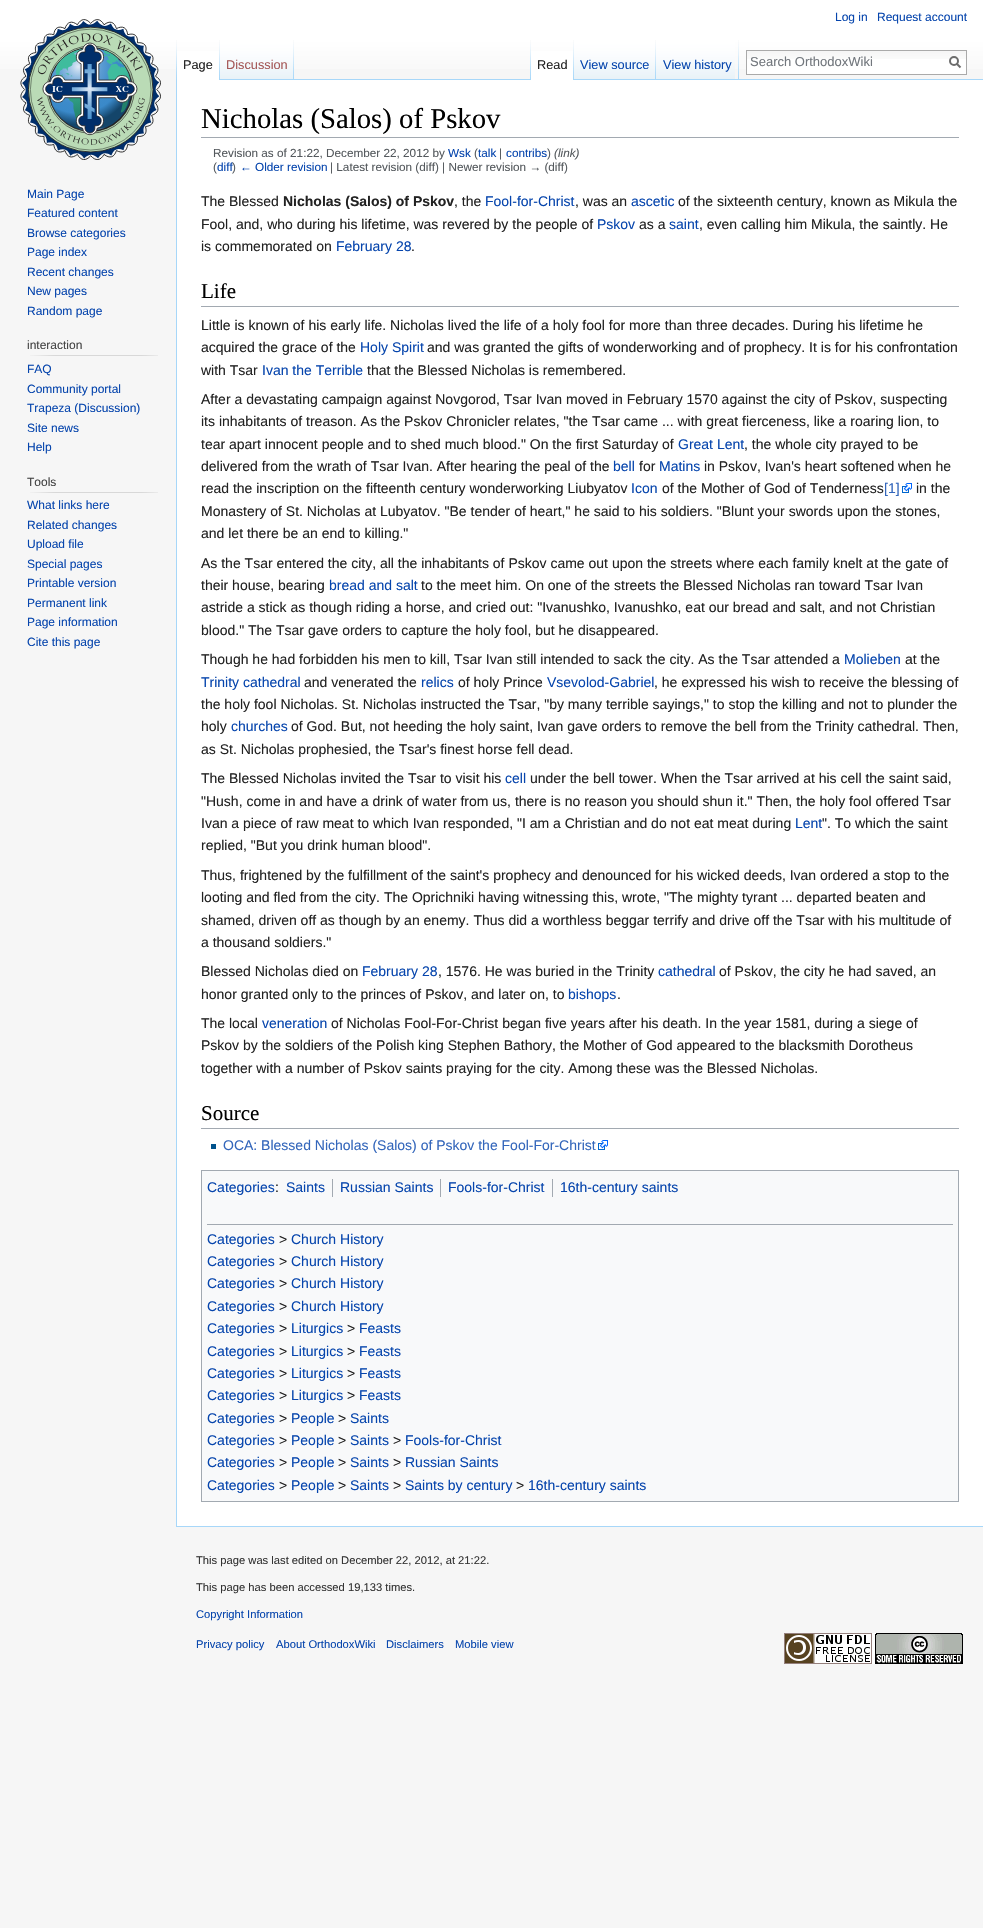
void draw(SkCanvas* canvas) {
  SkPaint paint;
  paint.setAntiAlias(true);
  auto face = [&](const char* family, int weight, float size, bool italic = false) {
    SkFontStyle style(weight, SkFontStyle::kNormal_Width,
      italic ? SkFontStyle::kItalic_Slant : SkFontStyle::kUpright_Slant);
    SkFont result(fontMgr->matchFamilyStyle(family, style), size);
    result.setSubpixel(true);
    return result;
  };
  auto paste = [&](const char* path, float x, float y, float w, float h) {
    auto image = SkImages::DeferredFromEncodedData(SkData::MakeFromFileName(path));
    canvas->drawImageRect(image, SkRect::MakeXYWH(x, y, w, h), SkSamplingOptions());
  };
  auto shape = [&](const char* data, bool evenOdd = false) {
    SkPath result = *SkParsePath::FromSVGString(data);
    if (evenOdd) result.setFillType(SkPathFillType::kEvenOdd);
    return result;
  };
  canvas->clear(0xfff6f6f6);
  {
    const SkColor colors[] = {0xffffffff, 0xfff6f6f6};
    const float stops[] = {0.5f, 1};
    const SkPoint ends[] = {{492, 0}, {492, 80}};
    paint.setShader(SkGradientShader::MakeLinear(ends, colors, stops, 2, SkTileMode::kClamp));
    paint.setAlpha(255);
  }
  canvas->drawRect(SkRect::MakeXYWH(0, 0, 983, 69), paint);
  paste("img/1.png", 176, 40, 1, 39);
  paint.setShader(nullptr);
  paint.setColor(0xffffffff);
  canvas->drawRect(SkRect::MakeXYWH(177, 51, 42, 29), paint);
  paste("img/2.png", 219, 40, 1, 40);
  paste("img/3.png", 220, 40, 74, 40);
  paste("img/1.png", 293, 40, 1, 39);
  paste("img/1.png", 530, 40, 1, 39);
  paint.setColor(0xffa7d7f9);
  canvas->drawRect(SkRect::MakeXYWH(294, 79, 689, 1), paint);
  paint.setColor(0xffffffff);
  canvas->drawRect(SkRect::MakeXYWH(531, 51, 42, 29), paint);
  paste("img/2.png", 573, 40, 1, 40);
  paste("img/4.png", 574, 40, 82, 40);
  paste("img/1.png", 655, 40, 1, 39);
  paste("img/5.png", 656, 40, 79, 40);
  paste("img/1.png", 738, 40, 1, 39);
  canvas->drawRect(SkRect::MakeXYWH(747, 59, 219, 15), paint);
  paste("img/6.png", 747, 51, 219, 8);
  paint.setStroke(true);
  paint.setStrokeWidth(1);
  paint.setColor(0xffaaaaaa);
  canvas->drawRect(SkRect::MakeXYWH(746.5f, 50.5f, 220, 24), paint);
  paint.setStrokeWidth(2);
  paint.setColor(0xff6c6c6c);
  canvas->drawPath(shape("M960.5 67.5L956.5 63.5"), paint);
  canvas->drawCircle(954, 61, 4, paint);
  paste("img/7.png", 20, 19, 141, 141);
  paste("img/8.png", 30, 355, 128, 1);
  paste("img/8.png", 30, 492, 128, 1);
  paint.setStroke(false);
  {
    const struct { float x, y, w, h; SkColor color; } items[] = {
      {177, 80, 806, 1446, 0xffffffff},
      {176, 1526, 807, 1, 0xffa7d7f9},
      {176, 79, 1, 1448, 0xffa7d7f9},
      {201, 137, 758, 1, 0xffa2a9b1},
      {201, 306, 758, 1, 0xffa2a9b1},
    };
    for (auto [x, y, w, h, color] : items) {
      paint.setColor(color);
      canvas->drawRect(SkRect::MakeXYWH(x, y, w, h), paint);
    }
  }
  paste("img/9.png", 902, 483, 10, 10);
  canvas->drawRect(SkRect::MakeXYWH(201, 1128, 758, 1), paint);
  paint.setColor(0xff00528c);
  canvas->drawRect(SkRect::MakeXYWH(211, 1144, 5, 5), paint);
  paste("img/9.png", 598, 1140, 10, 10);
  paint.setColor(0xfff8f9fa);
  canvas->drawRect(SkRect::MakeXYWH(201.5f, 1170.5f, 757, 331), paint);
  paint.setStroke(true);
  paint.setStrokeWidth(1);
  paint.setColor(0xffa2a9b1);
  canvas->drawRect(SkRect::MakeXYWH(201.5f, 1170.5f, 757, 331), paint);
  paint.setStroke(false);
  {
    const struct { float x, y, w, h; SkColor color; } items[] = {
      {332, 1179, 1, 18, 0xffa2a9b1},
      {440, 1179, 1, 18, 0xffa2a9b1},
      {552, 1179, 1, 18, 0xffa2a9b1},
      {207, 1224, 746, 1, 0xffa2a9b1},
    };
    for (auto [x, y, w, h, color] : items) {
      paint.setColor(color);
      canvas->drawRect(SkRect::MakeXYWH(x, y, w, h), paint);
    }
  }
  paste("img/10.png", 784, 1633, 179, 31);
  auto f0 = face("Liberation Sans", 400, 12);
  paint.setColor(0xff0645ad);
  canvas->drawString("Log in", 835, 21, f0, paint);
  canvas->drawString("Request account", 877, 21, f0, paint);
  auto f1 = face("Liberation Sans", 400, 12.75f);
  paint.setColor(0xff222222);
  canvas->drawString("Page", 183, 69, f1, paint);
  paint.setColor(0xffa55858);
  canvas->drawString("Discussion", 226, 69, f1, paint);
  paint.setColor(0xff222222);
  canvas->drawString("Read", 537, 69, f1, paint);
  paint.setColor(0xff0645ad);
  canvas->drawString("View source", 580, 69, f1, paint);
  canvas->drawString("View history", 663, 69, f1, paint);
  auto f2 = face("Liberation Sans", 400, 13);
  paint.setColor(0xff72777d);
  canvas->drawString("Search OrthodoxWiki", 750, 66, f2, paint);
  paint.setColor(0xff0645ad);
  {
    const struct { const char* s; float x, y; } items[] = {
      {"Main Page", 27, 198},
      {"Featured content", 27, 217},
      {"Browse categories", 27, 237},
      {"Page index", 27, 256},
      {"Recent changes", 27, 276},
      {"New pages", 27, 295},
      {"Random page", 27, 315},
    };
    for (auto [s, x, y] : items) {
      canvas->drawString(s, x, y, f0, paint);
    }
  }
  paint.setColor(0xff444444);
  canvas->drawString("interaction", 27, 349, f0, paint);
  paint.setColor(0xff0645ad);
  {
    const struct { const char* s; float x, y; } items[] = {
      {"FAQ", 27, 373},
      {"Community portal", 27, 393},
      {"Trapeza (Discussion)", 27, 412},
      {"Site news", 27, 432},
      {"Help", 27, 451},
    };
    for (auto [s, x, y] : items) {
      canvas->drawString(s, x, y, f0, paint);
    }
  }
  paint.setColor(0xff444444);
  canvas->drawString("Tools", 27, 486, f0, paint);
  paint.setColor(0xff0645ad);
  {
    const struct { const char* s; float x, y; } items[] = {
      {"What links here", 27, 509},
      {"Related changes", 27, 529},
      {"Upload file", 27, 548},
      {"Special pages", 27, 568},
      {"Printable version", 27, 587},
      {"Permanent link", 27, 607},
      {"Page information", 27, 626},
      {"Cite this page", 27, 646},
    };
    for (auto [s, x, y] : items) {
      canvas->drawString(s, x, y, f0, paint);
    }
  }
  auto f3 = face("Liberation Serif", 400, 28.75f);
  paint.setColor(0xff000000);
  canvas->drawString("Nicholas (Salos) of Pskov", 201, 128, f3, paint);
  auto f4 = face("Liberation Sans", 400, 11.75f);
  paint.setColor(0xff54595d);
  canvas->drawString("Revision as of 21:22, December 22, 2012 by", 213, 157, f4, paint);
  paint.setColor(0xff0645ad);
  canvas->drawString("Wsk", 448, 157, f4, paint);
  paint.setColor(0xff54595d);
  canvas->drawString("(", 474, 157, f4, paint);
  paint.setColor(0xff0645ad);
  canvas->drawString("talk", 478, 157, f4, paint);
  paint.setColor(0xff54595d);
  canvas->drawString("|", 499, 157, f4, paint);
  paint.setColor(0xff0645ad);
  canvas->drawString("contribs", 506, 157, f4, paint);
  paint.setColor(0xff54595d);
  canvas->drawString(")", 547, 157, f4, paint);
  auto f5 = face("Liberation Sans", 400, 11.75f, true);
  canvas->drawString("(link)", 554, 157, f5, paint);
  canvas->drawString("(", 213, 171, f4, paint);
  paint.setColor(0xff0645ad);
  canvas->drawString("diff", 217, 171, f4, paint);
  paint.setColor(0xff54595d);
  canvas->drawString(")", 232, 171, f4, paint);
  paint.setColor(0xff0645ad);
  canvas->drawString("← Older revision", 240, 171, f4, paint);
  paint.setColor(0xff54595d);
  canvas->drawString("| Latest revision (diff) | Newer revision → (diff)", 330, 171, f4, paint);
  auto f6 = face("Liberation Sans", 400, 14);
  paint.setColor(0xff222222);
  canvas->drawString("The Blessed", 201, 206, f6, paint);
  auto f7 = face("Liberation Sans", 700, 14);
  canvas->drawString("Nicholas (Salos) of Pskov", 283, 206, f7, paint);
  canvas->drawString(", the", 454, 206, f6, paint);
  paint.setColor(0xff0645ad);
  canvas->drawString("Fool-for-Christ", 485, 206, f6, paint);
  paint.setColor(0xff222222);
  canvas->drawString(", was an", 575, 206, f6, paint);
  paint.setColor(0xff0645ad);
  canvas->drawString("ascetic", 631, 206, f6, paint);
  paint.setColor(0xff222222);
  canvas->drawString("of the sixteenth century, known as Mikula the", 678, 206, f6, paint);
  canvas->drawString("Fool, and, who during his lifetime, was revered by the people of", 201, 229, f6, paint);
  paint.setColor(0xff0645ad);
  canvas->drawString("Pskov", 597, 229, f6, paint);
  paint.setColor(0xff222222);
  canvas->drawString("as a", 639, 229, f6, paint);
  paint.setColor(0xff0645ad);
  canvas->drawString("saint", 669, 229, f6, paint);
  paint.setColor(0xff222222);
  canvas->drawString(", even calling him Mikula, the saintly. He", 699, 229, f6, paint);
  canvas->drawString("is commemorated on", 201, 251, f6, paint);
  paint.setColor(0xff0645ad);
  canvas->drawString("February 28", 336, 251, f6, paint);
  paint.setColor(0xff222222);
  canvas->drawString(".", 411, 251, f6, paint);
  auto f8 = face("Liberation Serif", 400, 21);
  paint.setColor(0xff000000);
  canvas->drawString("Life", 201, 298, f8, paint);
  paint.setColor(0xff222222);
  canvas->drawString("Little is known of his early life. Nicholas lived the life of a holy fool for more than three decades. During his lifetime he", 201, 330, f6, paint);
  canvas->drawString("acquired the grace of the", 201, 352, f6, paint);
  paint.setColor(0xff0645ad);
  canvas->drawString("Holy Spirit", 360, 352, f6, paint);
  paint.setColor(0xff222222);
  canvas->drawString("and was granted the gifts of wonderworking and of prophecy. It is for his confrontation", 427, 352, f6, paint);
  canvas->drawString("with Tsar", 201, 375, f6, paint);
  paint.setColor(0xff0645ad);
  canvas->drawString("Ivan the Terrible", 262, 375, f6, paint);
  paint.setColor(0xff222222);
  {
    const struct { const char* s; float x, y; } items[] = {
      {"that the Blessed Nicholas is remembered.", 367, 375},
      {"After a devastating campaign against Novgorod, Tsar Ivan moved in February 1570 against the city of Pskov, suspecting", 201, 404},
      {"its inhabitants of treason. As the Pskov Chronicler relates, \"the Tsar came ... with great fierceness, like a roaring lion, to", 201, 426},
      {"tear apart innocent people and to shed much blood.\" On the first Saturday of", 201, 449},
    };
    for (auto [s, x, y] : items) {
      canvas->drawString(s, x, y, f6, paint);
    }
  }
  paint.setColor(0xff0645ad);
  canvas->drawString("Great Lent", 678, 449, f6, paint);
  paint.setColor(0xff222222);
  canvas->drawString(", the whole city prayed to be", 744, 449, f6, paint);
  canvas->drawString("delivered from the wrath of Tsar Ivan. After hearing the peal of the", 201, 471, f6, paint);
  paint.setColor(0xff0645ad);
  canvas->drawString("bell", 613, 471, f6, paint);
  paint.setColor(0xff222222);
  canvas->drawString("for", 639, 471, f6, paint);
  paint.setColor(0xff0645ad);
  canvas->drawString("Matins", 659, 471, f6, paint);
  paint.setColor(0xff222222);
  canvas->drawString("in Pskov, Ivan's heart softened when he", 704, 471, f6, paint);
  canvas->drawString("read the inscription on the fifteenth century wonderworking Liubyatov", 201, 493, f6, paint);
  paint.setColor(0xff0645ad);
  canvas->drawString("Icon", 631, 493, f6, paint);
  paint.setColor(0xff222222);
  canvas->drawString("of the Mother of God of Tenderness", 662, 493, f6, paint);
  paint.setColor(0xff3366bb);
  canvas->drawString("[1]", 884, 493, f6, paint);
  paint.setColor(0xff222222);
  {
    const struct { const char* s; float x, y; } items[] = {
      {"in the", 916, 493},
      {"Monastery of St. Nicholas at Lubyatov. \"Be tender of heart,\" he said to his soldiers. \"Blunt your swords upon the stones,", 201, 516},
      {"and let there be an end to killing.\"", 201, 538},
      {"As the Tsar entered the city, all the inhabitants of Pskov came out upon the streets where each family knelt at the gate of", 201, 568},
      {"their house, bearing", 201, 590},
    };
    for (auto [s, x, y] : items) {
      canvas->drawString(s, x, y, f6, paint);
    }
  }
  paint.setColor(0xff0645ad);
  canvas->drawString("bread and salt", 329, 590, f6, paint);
  paint.setColor(0xff222222);
  {
    const struct { const char* s; float x, y; } items[] = {
      {"to the meet him. On one of the streets the Blessed Nicholas ran toward Tsar Ivan", 421, 590},
      {"astride a stick as though riding a horse, and cried out: \"Ivanushko, Ivanushko, eat our bread and salt, and not Christian", 201, 612},
      {"blood.\" The Tsar gave orders to capture the holy fool, but he disappeared.", 201, 635},
      {"Though he had forbidden his men to kill, Tsar Ivan still intended to sack the city. As the Tsar attended a", 201, 664},
    };
    for (auto [s, x, y] : items) {
      canvas->drawString(s, x, y, f6, paint);
    }
  }
  paint.setColor(0xff0645ad);
  canvas->drawString("Molieben", 844, 664, f6, paint);
  paint.setColor(0xff222222);
  canvas->drawString("at the", 905, 664, f6, paint);
  paint.setColor(0xff0645ad);
  canvas->drawString("Trinity cathedral", 201, 687, f6, paint);
  paint.setColor(0xff222222);
  canvas->drawString("and venerated the", 304, 687, f6, paint);
  paint.setColor(0xff0645ad);
  canvas->drawString("relics", 421, 687, f6, paint);
  paint.setColor(0xff222222);
  canvas->drawString("of holy Prince", 458, 687, f6, paint);
  paint.setColor(0xff0645ad);
  canvas->drawString("Vsevolod-Gabriel", 547, 687, f6, paint);
  paint.setColor(0xff222222);
  {
    const struct { const char* s; float x, y; } items[] = {
      {", he expressed his wish to receive the blessing of", 654, 687},
      {"the holy fool Nicholas. St. Nicholas instructed the Tsar, \"by many terrible sayings,\" to stop the killing and not to plunder the", 201, 709},
      {"holy", 201, 731},
    };
    for (auto [s, x, y] : items) {
      canvas->drawString(s, x, y, f6, paint);
    }
  }
  paint.setColor(0xff0645ad);
  canvas->drawString("churches", 231, 731, f6, paint);
  paint.setColor(0xff222222);
  {
    const struct { const char* s; float x, y; } items[] = {
      {"of God. But, not heeding the holy saint, Ivan gave orders to remove the bell from the Trinity cathedral. Then,", 291, 731},
      {"as St. Nicholas prophesied, the Tsar's finest horse fell dead.", 201, 754},
      {"The Blessed Nicholas invited the Tsar to visit his", 201, 783},
    };
    for (auto [s, x, y] : items) {
      canvas->drawString(s, x, y, f6, paint);
    }
  }
  paint.setColor(0xff0645ad);
  canvas->drawString("cell", 505, 783, f6, paint);
  paint.setColor(0xff222222);
  {
    const struct { const char* s; float x, y; } items[] = {
      {"under the bell tower. When the Tsar arrived at his cell the saint said,", 530, 783},
      {"\"Hush, come in and have a drink of water from us, there is no reason you should shun it.\" Then, the holy fool offered Tsar", 201, 806},
      {"Ivan a piece of raw meat to which Ivan responded, \"I am a Christian and do not eat meat during", 201, 828},
    };
    for (auto [s, x, y] : items) {
      canvas->drawString(s, x, y, f6, paint);
    }
  }
  paint.setColor(0xff0645ad);
  canvas->drawString("Lent", 795, 828, f6, paint);
  paint.setColor(0xff222222);
  {
    const struct { const char* s; float x, y; } items[] = {
      {"\". To which the saint", 822, 828},
      {"replied, \"But you drink human blood\".", 201, 850},
      {"Thus, frightened by the fulfillment of the saint's prophecy and denounced for his wicked deeds, Ivan ordered a stop to the", 201, 880},
      {"looting and fled from the city. The Oprichniki having witnessing this, wrote, \"The mighty tyrant ... departed beaten and", 201, 902},
      {"shamed, driven off as though by an enemy. Thus did a worthless beggar terrify and drive off the Tsar with his multitude of", 201, 925},
      {"a thousand soldiers.\"", 201, 947},
      {"Blessed Nicholas died on", 201, 976},
    };
    for (auto [s, x, y] : items) {
      canvas->drawString(s, x, y, f6, paint);
    }
  }
  paint.setColor(0xff0645ad);
  canvas->drawString("February 28", 362, 976, f6, paint);
  paint.setColor(0xff222222);
  canvas->drawString(", 1576. He was buried in the Trinity", 438, 976, f6, paint);
  paint.setColor(0xff0645ad);
  canvas->drawString("cathedral", 658, 976, f6, paint);
  paint.setColor(0xff222222);
  canvas->drawString("of Pskov, the city he had saved, an", 719, 976, f6, paint);
  canvas->drawString("honor granted only to the princes of Pskov, and later on, to", 201, 999, f6, paint);
  paint.setColor(0xff0645ad);
  canvas->drawString("bishops", 568, 999, f6, paint);
  paint.setColor(0xff222222);
  canvas->drawString(".", 617, 999, f6, paint);
  canvas->drawString("The local", 201, 1028, f6, paint);
  paint.setColor(0xff0645ad);
  canvas->drawString("veneration", 262, 1028, f6, paint);
  paint.setColor(0xff222222);
  {
    const struct { const char* s; float x, y; } items[] = {
      {"of Nicholas Fool-For-Christ began five years after his death. In the year 1581, during a siege of", 331, 1028},
      {"Pskov by the soldiers of the Polish king Stephen Bathory, the Mother of God appeared to the blacksmith Dorotheus", 201, 1050},
      {"together with a number of Pskov saints praying for the city. Among these was the Blessed Nicholas.", 201, 1073},
    };
    for (auto [s, x, y] : items) {
      canvas->drawString(s, x, y, f6, paint);
    }
  }
  paint.setColor(0xff000000);
  canvas->drawString("Source", 201, 1120, f8, paint);
  paint.setColor(0xff3366bb);
  canvas->drawString("OCA: Blessed Nicholas (Salos) of Pskov the Fool-For-Christ", 223, 1150, f6, paint);
  paint.setColor(0xff0645ad);
  canvas->drawString("Categories", 207, 1192, f6, paint);
  paint.setColor(0xff222222);
  canvas->drawString(":", 275, 1192, f6, paint);
  paint.setColor(0xff0645ad);
  {
    const struct { const char* s; float x, y; } items[] = {
      {"Saints", 286, 1192},
      {"Russian Saints", 340, 1192},
      {"Fools-for-Christ", 448, 1192},
      {"16th-century saints", 560, 1192},
      {"Categories", 207, 1244},
    };
    for (auto [s, x, y] : items) {
      canvas->drawString(s, x, y, f6, paint);
    }
  }
  paint.setColor(0xff222222);
  canvas->drawString(">", 279, 1244, f6, paint);
  paint.setColor(0xff0645ad);
  canvas->drawString("Church History", 291, 1244, f6, paint);
  canvas->drawString("Categories", 207, 1266, f6, paint);
  paint.setColor(0xff222222);
  canvas->drawString(">", 279, 1266, f6, paint);
  paint.setColor(0xff0645ad);
  canvas->drawString("Church History", 291, 1266, f6, paint);
  canvas->drawString("Categories", 207, 1288, f6, paint);
  paint.setColor(0xff222222);
  canvas->drawString(">", 279, 1288, f6, paint);
  paint.setColor(0xff0645ad);
  canvas->drawString("Church History", 291, 1288, f6, paint);
  canvas->drawString("Categories", 207, 1311, f6, paint);
  paint.setColor(0xff222222);
  canvas->drawString(">", 279, 1311, f6, paint);
  paint.setColor(0xff0645ad);
  canvas->drawString("Church History", 291, 1311, f6, paint);
  canvas->drawString("Categories", 207, 1333, f6, paint);
  paint.setColor(0xff222222);
  canvas->drawString(">", 279, 1333, f6, paint);
  paint.setColor(0xff0645ad);
  canvas->drawString("Liturgics", 291, 1333, f6, paint);
  paint.setColor(0xff222222);
  canvas->drawString(">", 347, 1333, f6, paint);
  paint.setColor(0xff0645ad);
  canvas->drawString("Feasts", 359, 1333, f6, paint);
  canvas->drawString("Categories", 207, 1356, f6, paint);
  paint.setColor(0xff222222);
  canvas->drawString(">", 279, 1356, f6, paint);
  paint.setColor(0xff0645ad);
  canvas->drawString("Liturgics", 291, 1356, f6, paint);
  paint.setColor(0xff222222);
  canvas->drawString(">", 347, 1356, f6, paint);
  paint.setColor(0xff0645ad);
  canvas->drawString("Feasts", 359, 1356, f6, paint);
  canvas->drawString("Categories", 207, 1378, f6, paint);
  paint.setColor(0xff222222);
  canvas->drawString(">", 279, 1378, f6, paint);
  paint.setColor(0xff0645ad);
  canvas->drawString("Liturgics", 291, 1378, f6, paint);
  paint.setColor(0xff222222);
  canvas->drawString(">", 347, 1378, f6, paint);
  paint.setColor(0xff0645ad);
  canvas->drawString("Feasts", 359, 1378, f6, paint);
  canvas->drawString("Categories", 207, 1400, f6, paint);
  paint.setColor(0xff222222);
  canvas->drawString(">", 279, 1400, f6, paint);
  paint.setColor(0xff0645ad);
  canvas->drawString("Liturgics", 291, 1400, f6, paint);
  paint.setColor(0xff222222);
  canvas->drawString(">", 347, 1400, f6, paint);
  paint.setColor(0xff0645ad);
  canvas->drawString("Feasts", 359, 1400, f6, paint);
  canvas->drawString("Categories", 207, 1423, f6, paint);
  paint.setColor(0xff222222);
  canvas->drawString(">", 279, 1423, f6, paint);
  paint.setColor(0xff0645ad);
  canvas->drawString("People", 291, 1423, f6, paint);
  paint.setColor(0xff222222);
  canvas->drawString(">", 338, 1423, f6, paint);
  paint.setColor(0xff0645ad);
  canvas->drawString("Saints", 350, 1423, f6, paint);
  canvas->drawString("Categories", 207, 1445, f6, paint);
  paint.setColor(0xff222222);
  canvas->drawString(">", 279, 1445, f6, paint);
  paint.setColor(0xff0645ad);
  canvas->drawString("People", 291, 1445, f6, paint);
  paint.setColor(0xff222222);
  canvas->drawString(">", 338, 1445, f6, paint);
  paint.setColor(0xff0645ad);
  canvas->drawString("Saints", 350, 1445, f6, paint);
  paint.setColor(0xff222222);
  canvas->drawString(">", 393, 1445, f6, paint);
  paint.setColor(0xff0645ad);
  canvas->drawString("Fools-for-Christ", 405, 1445, f6, paint);
  canvas->drawString("Categories", 207, 1467, f6, paint);
  paint.setColor(0xff222222);
  canvas->drawString(">", 279, 1467, f6, paint);
  paint.setColor(0xff0645ad);
  canvas->drawString("People", 291, 1467, f6, paint);
  paint.setColor(0xff222222);
  canvas->drawString(">", 338, 1467, f6, paint);
  paint.setColor(0xff0645ad);
  canvas->drawString("Saints", 350, 1467, f6, paint);
  paint.setColor(0xff222222);
  canvas->drawString(">", 393, 1467, f6, paint);
  paint.setColor(0xff0645ad);
  canvas->drawString("Russian Saints", 405, 1467, f6, paint);
  canvas->drawString("Categories", 207, 1490, f6, paint);
  paint.setColor(0xff222222);
  canvas->drawString(">", 279, 1490, f6, paint);
  paint.setColor(0xff0645ad);
  canvas->drawString("People", 291, 1490, f6, paint);
  paint.setColor(0xff222222);
  canvas->drawString(">", 338, 1490, f6, paint);
  paint.setColor(0xff0645ad);
  canvas->drawString("Saints", 350, 1490, f6, paint);
  paint.setColor(0xff222222);
  canvas->drawString(">", 393, 1490, f6, paint);
  paint.setColor(0xff0645ad);
  canvas->drawString("Saints by century", 405, 1490, f6, paint);
  paint.setColor(0xff222222);
  canvas->drawString(">", 516, 1490, f6, paint);
  paint.setColor(0xff0645ad);
  canvas->drawString("16th-century saints", 528, 1490, f6, paint);
  auto f9 = face("Liberation Sans", 400, 11.2f);
  paint.setColor(0xff333333);
  canvas->drawString("This page was last edited on December 22, 2012, at 21:22.", 196, 1564, f9, paint);
  canvas->drawString("This page has been accessed 19,133 times.", 196, 1591, f9, paint);
  paint.setColor(0xff0645ad);
  {
    const struct { const char* s; float x, y; } items[] = {
      {"Copyright Information", 196, 1618},
      {"Privacy policy", 196, 1648},
      {"About OrthodoxWiki", 276, 1648},
      {"Disclaimers", 386, 1648},
      {"Mobile view", 455, 1648},
    };
    for (auto [s, x, y] : items) {
      canvas->drawString(s, x, y, f9, paint);
    }
  }
}
